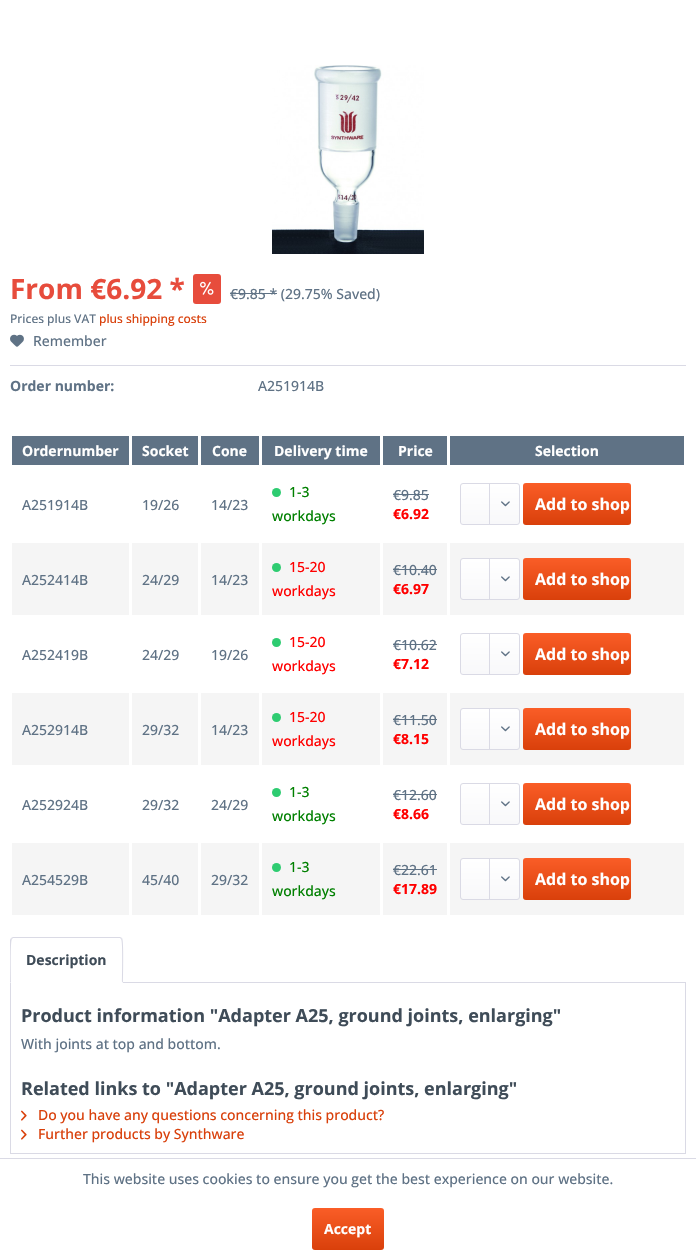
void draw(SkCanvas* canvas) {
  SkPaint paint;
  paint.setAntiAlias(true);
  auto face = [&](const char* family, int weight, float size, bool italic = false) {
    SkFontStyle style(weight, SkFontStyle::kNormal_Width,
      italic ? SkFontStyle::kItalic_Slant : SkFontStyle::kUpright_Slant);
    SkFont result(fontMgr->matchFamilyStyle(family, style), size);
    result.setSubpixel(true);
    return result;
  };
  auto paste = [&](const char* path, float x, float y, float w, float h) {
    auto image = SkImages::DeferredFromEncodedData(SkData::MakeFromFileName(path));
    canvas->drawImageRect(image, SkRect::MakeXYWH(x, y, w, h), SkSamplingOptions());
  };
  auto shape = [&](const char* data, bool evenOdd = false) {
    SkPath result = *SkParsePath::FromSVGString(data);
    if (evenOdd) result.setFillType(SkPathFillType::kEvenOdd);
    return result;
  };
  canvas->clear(0xffffffff);
  paste("img/1.png", 272, 65, 152, 189);
  paint.setColor(0xffe74c3c);
  canvas->drawRoundRect(SkRect::MakeXYWH(193, 274, 28, 30), 3, 3, paint);
  paste("img/2.png", 200, 281, 14, 14);
  paint.setColor(0xff5f7285);
  canvas->drawRect(SkRect::MakeXYWH(230, 293, 47, 1), paint);
  paint.setColor(0xffdadae5);
  canvas->drawRect(SkRect::MakeXYWH(10, 365, 676, 1), paint);
  paste("img/3.png", 10, 334, 14, 13);
  {
    const struct { float x, y, w, h; SkColor color; } items[] = {
      {12, 436, 117, 29, 0xff5f7285},
      {132, 436, 66, 29, 0xff5f7285},
      {201, 436, 58, 29, 0xff5f7285},
      {262, 436, 118, 29, 0xff5f7285},
      {383, 436, 64, 29, 0xff5f7285},
      {450, 436, 234, 29, 0xff5f7285},
    };
    for (auto [x, y, w, h, color] : items) {
      paint.setColor(color);
      canvas->drawRect(SkRect::MakeXYWH(x, y, w, h), paint);
    }
  }
  paint.setColor(0xff2ecc71);
  canvas->drawCircle(276.5f, 492.5f, 4.5f, paint);
  paint.setColor(0xff5f7285);
  canvas->drawRect(SkRect::MakeXYWH(393, 494, 36, 1), paint);
  {
    const SkColor colors[] = {0xffffffff, 0xfff8f8fa};
    const float stops[] = {0, 1};
    const SkPoint ends[] = {{490, 484}, {490, 524}};
    paint.setShader(SkGradientShader::MakeLinear(ends, colors, stops, 2, SkTileMode::kClamp));
    paint.setAlpha(255);
  }
  canvas->drawRoundRect(SkRect::MakeXYWH(461, 484, 58, 40), 2, 2, paint);
  paint.setStroke(true);
  paint.setStrokeWidth(1);
  paint.setShader(nullptr);
  paint.setColor(0xffdadae5);
  canvas->drawRoundRect(SkRect::MakeXYWH(460.5f, 483.5f, 59, 41), 2.5f, 2.5f, paint);
  paint.setStroke(false);
  canvas->drawRect(SkRect::MakeXYWH(489, 484, 1, 40), paint);
  paste("img/4.png", 501, 501, 9, 6);
  {
    const SkColor colors[] = {0xfffa5d27, 0xffd9400b};
    const float stops[] = {0, 1};
    const SkPoint ends[] = {{577, 483}, {577, 525}};
    paint.setShader(SkGradientShader::MakeLinear(ends, colors, stops, 2, SkTileMode::kClamp));
    paint.setAlpha(255);
  }
  canvas->drawRoundRect(SkRect::MakeXYWH(523, 483, 108, 42), 3, 3, paint);
  paint.setShader(nullptr);
  {
    const struct { float x, y, w, h; SkColor color; } items[] = {
      {12, 543, 117, 72, 0xfff5f5f5},
      {132, 543, 66, 72, 0xfff5f5f5},
      {201, 543, 58, 72, 0xfff5f5f5},
      {262, 543, 118, 72, 0xfff5f5f5},
    };
    for (auto [x, y, w, h, color] : items) {
      paint.setColor(color);
      canvas->drawRect(SkRect::MakeXYWH(x, y, w, h), paint);
    }
  }
  paint.setColor(0xff2ecc71);
  canvas->drawCircle(276.5f, 567.5f, 4.5f, paint);
  {
    const struct { float x, y, w, h; SkColor color; } items[] = {
      {383, 543, 64, 72, 0xfff5f5f5},
      {393, 569, 44, 1, 0xff5f7285},
      {450, 543, 234, 72, 0xfff5f5f5},
    };
    for (auto [x, y, w, h, color] : items) {
      paint.setColor(color);
      canvas->drawRect(SkRect::MakeXYWH(x, y, w, h), paint);
    }
  }
  {
    const SkColor colors[] = {0xffffffff, 0xfff8f8fa};
    const float stops[] = {0, 1};
    const SkPoint ends[] = {{490, 559}, {490, 599}};
    paint.setShader(SkGradientShader::MakeLinear(ends, colors, stops, 2, SkTileMode::kClamp));
    paint.setAlpha(255);
  }
  canvas->drawRoundRect(SkRect::MakeXYWH(461, 559, 58, 40), 2, 2, paint);
  paint.setStroke(true);
  paint.setShader(nullptr);
  paint.setColor(0xffdadae5);
  canvas->drawRoundRect(SkRect::MakeXYWH(460.5f, 558.5f, 59, 41), 2.5f, 2.5f, paint);
  paint.setStroke(false);
  canvas->drawRect(SkRect::MakeXYWH(489, 559, 1, 40), paint);
  paste("img/4.png", 501, 576, 9, 6);
  {
    const SkColor colors[] = {0xfffa5d27, 0xffd9400b};
    const float stops[] = {0, 1};
    const SkPoint ends[] = {{577, 558}, {577, 600}};
    paint.setShader(SkGradientShader::MakeLinear(ends, colors, stops, 2, SkTileMode::kClamp));
    paint.setAlpha(255);
  }
  canvas->drawRoundRect(SkRect::MakeXYWH(523, 558, 108, 42), 3, 3, paint);
  paint.setShader(nullptr);
  paint.setColor(0xff2ecc71);
  canvas->drawCircle(276.5f, 642.5f, 4.5f, paint);
  paint.setColor(0xff5f7285);
  canvas->drawRect(SkRect::MakeXYWH(393, 644, 44, 1), paint);
  {
    const SkColor colors[] = {0xffffffff, 0xfff8f8fa};
    const float stops[] = {0, 1};
    const SkPoint ends[] = {{490, 634}, {490, 674}};
    paint.setShader(SkGradientShader::MakeLinear(ends, colors, stops, 2, SkTileMode::kClamp));
    paint.setAlpha(255);
  }
  canvas->drawRoundRect(SkRect::MakeXYWH(461, 634, 58, 40), 2, 2, paint);
  paint.setStroke(true);
  paint.setShader(nullptr);
  paint.setColor(0xffdadae5);
  canvas->drawRoundRect(SkRect::MakeXYWH(460.5f, 633.5f, 59, 41), 2.5f, 2.5f, paint);
  paint.setStroke(false);
  canvas->drawRect(SkRect::MakeXYWH(489, 634, 1, 40), paint);
  paste("img/4.png", 501, 651, 9, 6);
  {
    const SkColor colors[] = {0xfffa5d27, 0xffd9400b};
    const float stops[] = {0, 1};
    const SkPoint ends[] = {{577, 633}, {577, 675}};
    paint.setShader(SkGradientShader::MakeLinear(ends, colors, stops, 2, SkTileMode::kClamp));
    paint.setAlpha(255);
  }
  canvas->drawRoundRect(SkRect::MakeXYWH(523, 633, 108, 42), 3, 3, paint);
  paint.setShader(nullptr);
  {
    const struct { float x, y, w, h; SkColor color; } items[] = {
      {12, 693, 117, 72, 0xfff5f5f5},
      {132, 693, 66, 72, 0xfff5f5f5},
      {201, 693, 58, 72, 0xfff5f5f5},
      {262, 693, 118, 72, 0xfff5f5f5},
    };
    for (auto [x, y, w, h, color] : items) {
      paint.setColor(color);
      canvas->drawRect(SkRect::MakeXYWH(x, y, w, h), paint);
    }
  }
  paint.setColor(0xff2ecc71);
  canvas->drawCircle(276.5f, 717.5f, 4.5f, paint);
  {
    const struct { float x, y, w, h; SkColor color; } items[] = {
      {383, 693, 64, 72, 0xfff5f5f5},
      {393, 719, 44, 1, 0xff5f7285},
      {450, 693, 234, 72, 0xfff5f5f5},
    };
    for (auto [x, y, w, h, color] : items) {
      paint.setColor(color);
      canvas->drawRect(SkRect::MakeXYWH(x, y, w, h), paint);
    }
  }
  {
    const SkColor colors[] = {0xffffffff, 0xfff8f8fa};
    const float stops[] = {0, 1};
    const SkPoint ends[] = {{490, 709}, {490, 749}};
    paint.setShader(SkGradientShader::MakeLinear(ends, colors, stops, 2, SkTileMode::kClamp));
    paint.setAlpha(255);
  }
  canvas->drawRoundRect(SkRect::MakeXYWH(461, 709, 58, 40), 2, 2, paint);
  paint.setStroke(true);
  paint.setShader(nullptr);
  paint.setColor(0xffdadae5);
  canvas->drawRoundRect(SkRect::MakeXYWH(460.5f, 708.5f, 59, 41), 2.5f, 2.5f, paint);
  paint.setStroke(false);
  canvas->drawRect(SkRect::MakeXYWH(489, 709, 1, 40), paint);
  paste("img/4.png", 501, 726, 9, 6);
  {
    const SkColor colors[] = {0xfffa5d27, 0xffd9400b};
    const float stops[] = {0, 1};
    const SkPoint ends[] = {{577, 708}, {577, 750}};
    paint.setShader(SkGradientShader::MakeLinear(ends, colors, stops, 2, SkTileMode::kClamp));
    paint.setAlpha(255);
  }
  canvas->drawRoundRect(SkRect::MakeXYWH(523, 708, 108, 42), 3, 3, paint);
  paint.setShader(nullptr);
  paint.setColor(0xff2ecc71);
  canvas->drawCircle(276.5f, 792.5f, 4.5f, paint);
  paint.setColor(0xff5f7285);
  canvas->drawRect(SkRect::MakeXYWH(393, 794, 44, 1), paint);
  {
    const SkColor colors[] = {0xffffffff, 0xfff8f8fa};
    const float stops[] = {0, 1};
    const SkPoint ends[] = {{490, 784}, {490, 824}};
    paint.setShader(SkGradientShader::MakeLinear(ends, colors, stops, 2, SkTileMode::kClamp));
    paint.setAlpha(255);
  }
  canvas->drawRoundRect(SkRect::MakeXYWH(461, 784, 58, 40), 2, 2, paint);
  paint.setStroke(true);
  paint.setShader(nullptr);
  paint.setColor(0xffdadae5);
  canvas->drawRoundRect(SkRect::MakeXYWH(460.5f, 783.5f, 59, 41), 2.5f, 2.5f, paint);
  paint.setStroke(false);
  canvas->drawRect(SkRect::MakeXYWH(489, 784, 1, 40), paint);
  paste("img/4.png", 501, 801, 9, 6);
  {
    const SkColor colors[] = {0xfffa5d27, 0xffd9400b};
    const float stops[] = {0, 1};
    const SkPoint ends[] = {{577, 783}, {577, 825}};
    paint.setShader(SkGradientShader::MakeLinear(ends, colors, stops, 2, SkTileMode::kClamp));
    paint.setAlpha(255);
  }
  canvas->drawRoundRect(SkRect::MakeXYWH(523, 783, 108, 42), 3, 3, paint);
  paint.setShader(nullptr);
  {
    const struct { float x, y, w, h; SkColor color; } items[] = {
      {12, 843, 117, 72, 0xfff5f5f5},
      {132, 843, 66, 72, 0xfff5f5f5},
      {201, 843, 58, 72, 0xfff5f5f5},
      {262, 843, 118, 72, 0xfff5f5f5},
    };
    for (auto [x, y, w, h, color] : items) {
      paint.setColor(color);
      canvas->drawRect(SkRect::MakeXYWH(x, y, w, h), paint);
    }
  }
  paint.setColor(0xff2ecc71);
  canvas->drawCircle(276.5f, 867.5f, 4.5f, paint);
  {
    const struct { float x, y, w, h; SkColor color; } items[] = {
      {383, 843, 64, 72, 0xfff5f5f5},
      {393, 869, 44, 1, 0xff5f7285},
      {450, 843, 234, 72, 0xfff5f5f5},
    };
    for (auto [x, y, w, h, color] : items) {
      paint.setColor(color);
      canvas->drawRect(SkRect::MakeXYWH(x, y, w, h), paint);
    }
  }
  {
    const SkColor colors[] = {0xffffffff, 0xfff8f8fa};
    const float stops[] = {0, 1};
    const SkPoint ends[] = {{490, 859}, {490, 899}};
    paint.setShader(SkGradientShader::MakeLinear(ends, colors, stops, 2, SkTileMode::kClamp));
    paint.setAlpha(255);
  }
  canvas->drawRoundRect(SkRect::MakeXYWH(461, 859, 58, 40), 2, 2, paint);
  paint.setStroke(true);
  paint.setShader(nullptr);
  paint.setColor(0xffdadae5);
  canvas->drawRoundRect(SkRect::MakeXYWH(460.5f, 858.5f, 59, 41), 2.5f, 2.5f, paint);
  paint.setStroke(false);
  canvas->drawRect(SkRect::MakeXYWH(489, 859, 1, 40), paint);
  paste("img/4.png", 501, 876, 9, 6);
  {
    const SkColor colors[] = {0xfffa5d27, 0xffd9400b};
    const float stops[] = {0, 1};
    const SkPoint ends[] = {{577, 858}, {577, 900}};
    paint.setShader(SkGradientShader::MakeLinear(ends, colors, stops, 2, SkTileMode::kClamp));
    paint.setAlpha(255);
  }
  canvas->drawRoundRect(SkRect::MakeXYWH(523, 858, 108, 42), 3, 3, paint);
  paint.setStroke(true);
  paint.setShader(nullptr);
  paint.setColor(0xffdadae5);
  canvas->drawRect(SkRect::MakeXYWH(10.5f, 982.5f, 675, 171), paint);
  paint.setStroke(false);
  paint.setColor(0xffffffff);
  canvas->drawPath(shape("M13 937H120C121.5 937 123 938.5 123 940V983H10V940C10 938.5 11.5 937 13 937Z"), paint);
  paint.setColor(0xffdadae5);
  canvas->drawPath(shape("M13 937L11 938L12 939L13 938H102H120L121 939L122 938L120 937Z"), paint);
  canvas->drawPath(shape("M123 983C123 978 124 940 122 938L121 939C123 940 122 977 122 982Z"), paint);
  paint.setColor(0xffffffff);
  canvas->drawPath(shape("M123 983L122 982H11L10 983Z"), paint);
  paint.setColor(0xffdadae5);
  canvas->drawPath(shape("M10 983L11 982C11 977 10 940 12 939L11 938L10 940Z"), paint);
  paste("img/5.png", 21, 1110, 6, 11);
  paste("img/5.png", 21, 1129, 6, 11);
  canvas->drawRect(SkRect::MakeXYWH(0, 1158, 696, 1), paint);
  {
    const SkColor colors[] = {0xfffa5d27, 0xffd9400b};
    const float stops[] = {0, 1};
    const SkPoint ends[] = {{348, 1208}, {348, 1250}};
    paint.setShader(SkGradientShader::MakeLinear(ends, colors, stops, 2, SkTileMode::kClamp));
    paint.setAlpha(255);
  }
  canvas->drawRoundRect(SkRect::MakeXYWH(312, 1208, 72, 42), 3, 3, paint);
  auto f0 = face("Open Sans", 700, 28);
  paint.setShader(nullptr);
  paint.setColor(0xffe74c3c);
  canvas->drawString("From €6.92 *", 10, 299, f0, paint);
  auto f1 = face("Open Sans", 500, 14);
  paint.setColor(0xff5f7285);
  canvas->drawString("€9.85 * (29.75% Saved)", 230, 299, f1, paint);
  auto f2 = face("Open Sans", 500, 12);
  canvas->drawString("Prices plus VAT", 10, 323, f2, paint);
  paint.setColor(0xffd9400b);
  canvas->drawString("plus shipping costs", 99, 323, f2, paint);
  paint.setColor(0xff5f7285);
  canvas->drawString("Remember", 33, 346, f1, paint);
  auto f3 = face("Open Sans", 700, 14);
  canvas->drawString("Order number:", 10, 391, f3, paint);
  canvas->drawString("A251914B", 258, 391, f1, paint);
  paint.setColor(0xffffffff);
  {
    const struct { const char* s; float x, y; } items[] = {
      {"Ordernumber", 22, 456},
      {"Socket", 142, 456},
      {"Cone", 212, 456},
      {"Delivery time", 274, 456},
      {"Price", 398, 456},
      {"Selection", 535, 456},
    };
    for (auto [s, x, y] : items) {
      canvas->drawString(s, x, y, f3, paint);
    }
  }
  paint.setColor(0xff5f7285);
  {
    const struct { const char* s; float x, y; } items[] = {
      {"A251914B", 22, 510},
      {"19/26", 142, 510},
      {"14/23", 211, 510},
    };
    for (auto [s, x, y] : items) {
      canvas->drawString(s, x, y, f1, paint);
    }
  }
  paint.setColor(0xff008000);
  canvas->drawString("1-3", 289, 497, f1, paint);
  canvas->drawString("workdays", 272, 521, f1, paint);
  paint.setColor(0xff5f7285);
  canvas->drawString("€9.85", 393, 500, f1, paint);
  paint.setColor(0xffff0000);
  canvas->drawString("€6.92", 393, 519, f3, paint);
  auto f4 = face("Open Sans", 700, 16);
  paint.setColor(0xffffffff);
  canvas->drawString("Add to shop", 535, 510, f4, paint);
  paint.setColor(0xff5f7285);
  {
    const struct { const char* s; float x, y; } items[] = {
      {"A252414B", 22, 585},
      {"24/29", 142, 585},
      {"14/23", 211, 585},
    };
    for (auto [s, x, y] : items) {
      canvas->drawString(s, x, y, f1, paint);
    }
  }
  paint.setColor(0xffff0000);
  canvas->drawString("15-20", 289, 572, f1, paint);
  canvas->drawString("workdays", 272, 596, f1, paint);
  paint.setColor(0xff5f7285);
  canvas->drawString("€10.40", 393, 575, f1, paint);
  paint.setColor(0xffff0000);
  canvas->drawString("€6.97", 393, 594, f3, paint);
  paint.setColor(0xffffffff);
  canvas->drawString("Add to shop", 535, 585, f4, paint);
  paint.setColor(0xff5f7285);
  {
    const struct { const char* s; float x, y; } items[] = {
      {"A252419B", 22, 660},
      {"24/29", 142, 660},
      {"19/26", 211, 660},
    };
    for (auto [s, x, y] : items) {
      canvas->drawString(s, x, y, f1, paint);
    }
  }
  paint.setColor(0xffff0000);
  canvas->drawString("15-20", 289, 647, f1, paint);
  canvas->drawString("workdays", 272, 671, f1, paint);
  paint.setColor(0xff5f7285);
  canvas->drawString("€10.62", 393, 650, f1, paint);
  paint.setColor(0xffff0000);
  canvas->drawString("€7.12", 393, 669, f3, paint);
  paint.setColor(0xffffffff);
  canvas->drawString("Add to shop", 535, 660, f4, paint);
  paint.setColor(0xff5f7285);
  {
    const struct { const char* s; float x, y; } items[] = {
      {"A252914B", 22, 735},
      {"29/32", 142, 735},
      {"14/23", 211, 735},
    };
    for (auto [s, x, y] : items) {
      canvas->drawString(s, x, y, f1, paint);
    }
  }
  paint.setColor(0xffff0000);
  canvas->drawString("15-20", 289, 722, f1, paint);
  canvas->drawString("workdays", 272, 746, f1, paint);
  paint.setColor(0xff5f7285);
  canvas->drawString("€11.50", 393, 725, f1, paint);
  paint.setColor(0xffff0000);
  canvas->drawString("€8.15", 393, 744, f3, paint);
  paint.setColor(0xffffffff);
  canvas->drawString("Add to shop", 535, 735, f4, paint);
  paint.setColor(0xff5f7285);
  {
    const struct { const char* s; float x, y; } items[] = {
      {"A252924B", 22, 810},
      {"29/32", 142, 810},
      {"24/29", 211, 810},
    };
    for (auto [s, x, y] : items) {
      canvas->drawString(s, x, y, f1, paint);
    }
  }
  paint.setColor(0xff008000);
  canvas->drawString("1-3", 289, 797, f1, paint);
  canvas->drawString("workdays", 272, 821, f1, paint);
  paint.setColor(0xff5f7285);
  canvas->drawString("€12.60", 393, 800, f1, paint);
  paint.setColor(0xffff0000);
  canvas->drawString("€8.66", 393, 819, f3, paint);
  paint.setColor(0xffffffff);
  canvas->drawString("Add to shop", 535, 810, f4, paint);
  paint.setColor(0xff5f7285);
  {
    const struct { const char* s; float x, y; } items[] = {
      {"A254529B", 22, 885},
      {"45/40", 142, 885},
      {"29/32", 211, 885},
    };
    for (auto [s, x, y] : items) {
      canvas->drawString(s, x, y, f1, paint);
    }
  }
  paint.setColor(0xff008000);
  canvas->drawString("1-3", 289, 872, f1, paint);
  canvas->drawString("workdays", 272, 896, f1, paint);
  paint.setColor(0xff5f7285);
  canvas->drawString("€22.61", 393, 875, f1, paint);
  paint.setColor(0xffff0000);
  canvas->drawString("€17.89", 393, 894, f3, paint);
  paint.setColor(0xffffffff);
  canvas->drawString("Add to shop", 535, 885, f4, paint);
  paint.setColor(0xff3f4c58);
  canvas->drawString("Description", 26, 965, f3, paint);
  auto f5 = face("Open Sans", 700, 18);
  canvas->drawString("Product information \"Adapter A25, ground joints, enlarging\"", 21, 1022, f5, paint);
  paint.setColor(0xff5f7285);
  canvas->drawString("With joints at top and bottom.", 21, 1049, f1, paint);
  paint.setColor(0xff3f4c58);
  canvas->drawString("Related links to \"Adapter A25, ground joints, enlarging\"", 21, 1095, f5, paint);
  paint.setColor(0xffd9400b);
  canvas->drawString("Do you have any questions concerning this product?", 38, 1120, f1, paint);
  canvas->drawString("Further products by Synthware", 38, 1139, f1, paint);
  paint.setColor(0xff5f7285);
  canvas->drawString("This website uses cookies to ensure you get the best experience on our website.", 83, 1184, f1, paint);
  paint.setColor(0xffffffff);
  canvas->drawString("Accept", 324, 1234, f3, paint);
}
